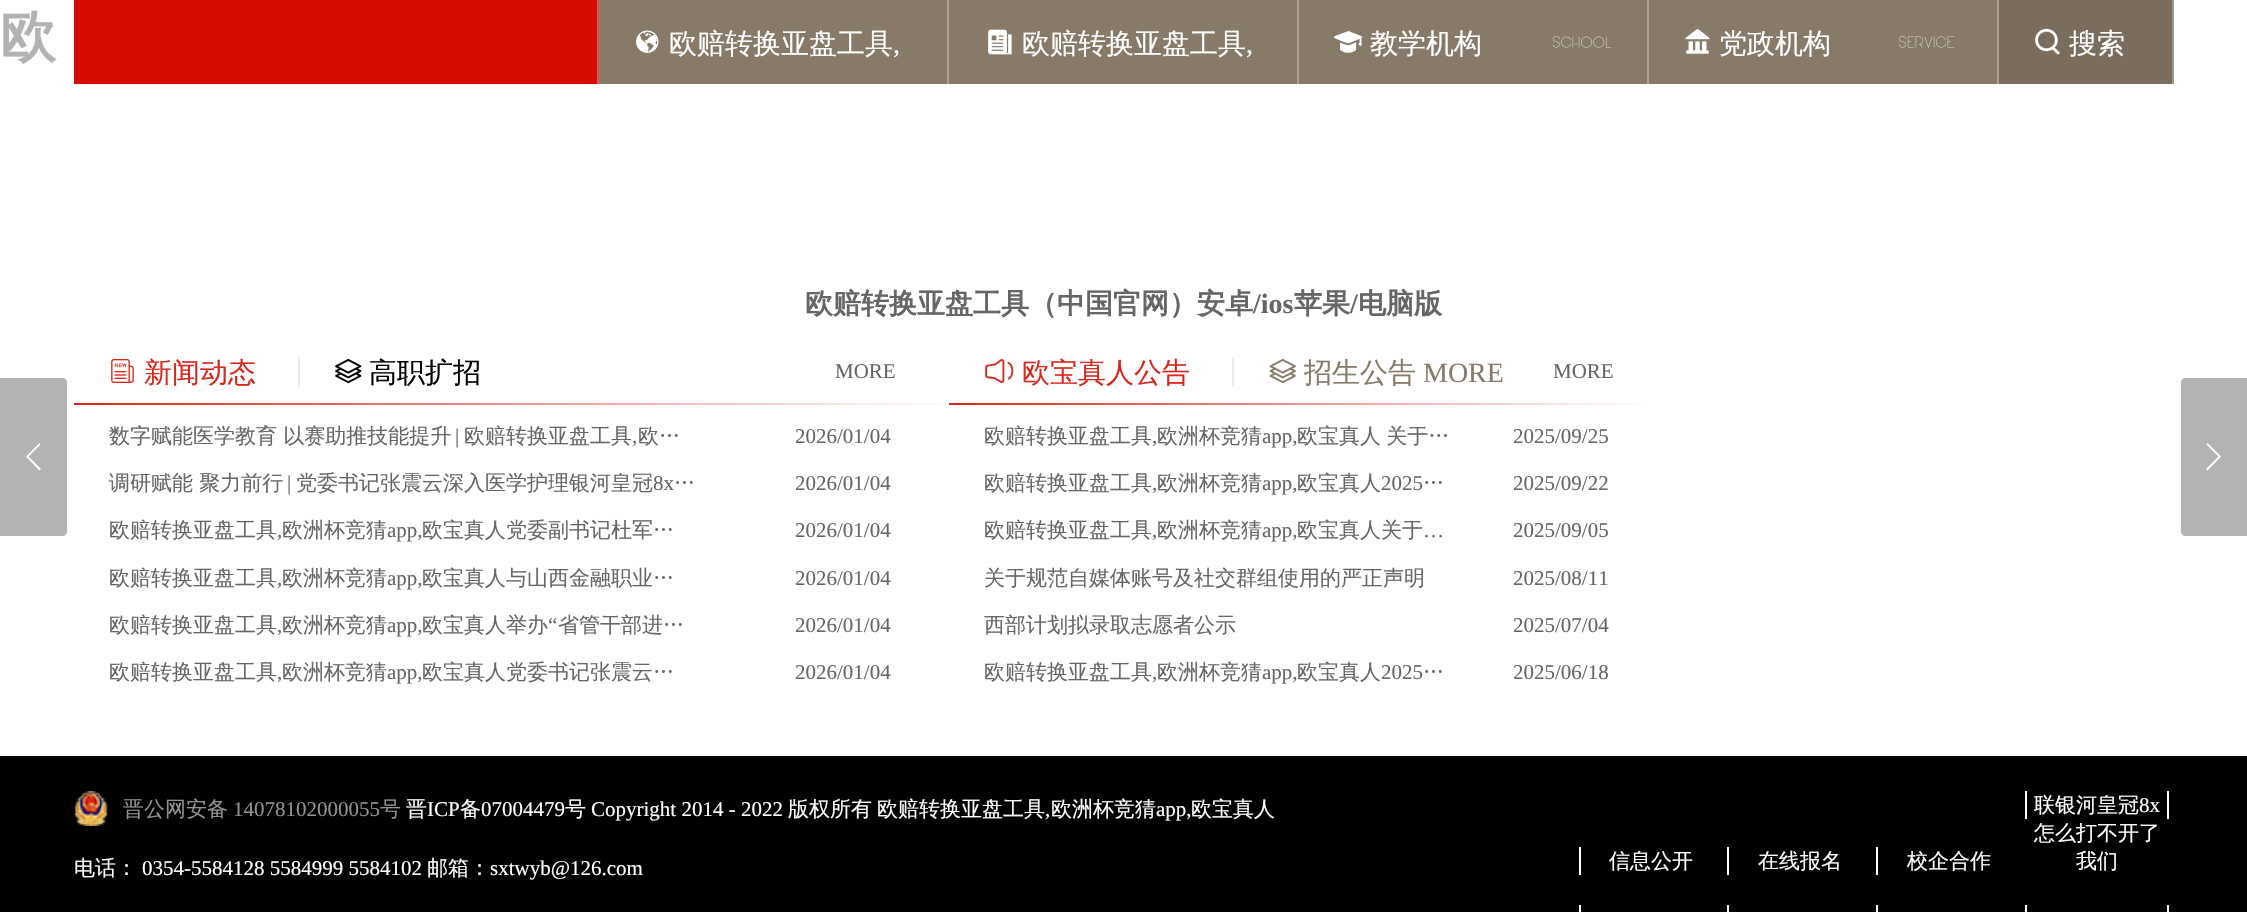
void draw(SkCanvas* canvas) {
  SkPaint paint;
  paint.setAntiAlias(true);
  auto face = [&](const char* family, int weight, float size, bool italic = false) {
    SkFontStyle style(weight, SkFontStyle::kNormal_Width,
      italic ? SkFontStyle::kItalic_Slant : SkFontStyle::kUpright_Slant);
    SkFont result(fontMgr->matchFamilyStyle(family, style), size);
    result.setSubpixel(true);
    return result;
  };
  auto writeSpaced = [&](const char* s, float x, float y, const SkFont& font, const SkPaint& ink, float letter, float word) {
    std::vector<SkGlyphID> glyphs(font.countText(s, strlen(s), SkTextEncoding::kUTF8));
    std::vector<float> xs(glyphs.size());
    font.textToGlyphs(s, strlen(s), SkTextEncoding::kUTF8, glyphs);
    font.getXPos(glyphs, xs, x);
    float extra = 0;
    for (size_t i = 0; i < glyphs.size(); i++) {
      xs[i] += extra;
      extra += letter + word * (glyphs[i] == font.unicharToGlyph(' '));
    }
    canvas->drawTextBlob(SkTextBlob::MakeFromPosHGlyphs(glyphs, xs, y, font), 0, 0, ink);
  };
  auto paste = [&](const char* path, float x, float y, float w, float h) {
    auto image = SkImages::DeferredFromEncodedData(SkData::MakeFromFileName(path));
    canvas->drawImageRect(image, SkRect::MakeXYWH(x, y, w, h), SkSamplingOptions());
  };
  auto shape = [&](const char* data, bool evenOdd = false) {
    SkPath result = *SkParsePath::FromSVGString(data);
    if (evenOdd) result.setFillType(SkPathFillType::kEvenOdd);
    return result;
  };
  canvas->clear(0xffffffff);
  {
    const struct { float x, y, w, h; SkColor color; } items[] = {
      {74, 0, 523, 84, 0xffd50c00},
      {597, 0, 2, 84, 0xffe2554d},
      {599, 0, 348, 84, 0xff877a69},
      {947, 0, 2, 84, 0xffaba296},
    };
    for (auto [x, y, w, h, color] : items) {
      paint.setColor(color);
      canvas->drawRect(SkRect::MakeXYWH(x, y, w, h), paint);
    }
  }
  paste("img/1.png", 636, 30, 23, 23);
  paint.setColor(0xff877a69);
  canvas->drawRect(SkRect::MakeXYWH(949, 0, 348, 84), paint);
  paint.setColor(0xffaba296);
  canvas->drawRect(SkRect::MakeXYWH(1297, 0, 2, 84), paint);
  paste("img/2.png", 988, 29, 24, 26);
  paint.setColor(0xff877a69);
  canvas->drawRect(SkRect::MakeXYWH(1299, 0, 348, 84), paint);
  paint.setColor(0xffaba296);
  canvas->drawRect(SkRect::MakeXYWH(1647, 0, 2, 84), paint);
  paste("img/3.png", 1333, 31, 30, 22);
  paste("img/4.png", 1552, 36, 59, 12);
  paint.setColor(0xff877a69);
  canvas->drawRect(SkRect::MakeXYWH(1649, 0, 348, 84), paint);
  paint.setColor(0xffaba296);
  canvas->drawRect(SkRect::MakeXYWH(1997, 0, 2, 84), paint);
  paste("img/5.png", 1685, 29, 25, 25);
  paste("img/6.png", 1899, 36, 56, 12);
  paint.setColor(0xff7a6d5d);
  canvas->drawRect(SkRect::MakeXYWH(1999, 0, 173, 84), paint);
  paint.setColor(0xffa2998e);
  canvas->drawRect(SkRect::MakeXYWH(2172, 0, 2, 84), paint);
  paste("img/7.png", 2035, 28, 25, 27);
  paint.setColor(0xffb3b3b3);
  canvas->drawPath(shape("M0 378H63C65 378 67 380 67 382V532C67 534 65 536 63 536H0Z"), paint);
  paint.setColor(0xffffffff);
  canvas->drawPath(shape("M39.5 470.5L41 469L28.5 456.5L40.5 444.5L39.5 443L26 456.5Z"), paint);
  paste("img/8.png", 111, 359, 23, 24);
  paint.setColor(0xfff2eae1);
  canvas->drawRect(SkRect::MakeXYWH(298, 357, 2, 30), paint);
  paste("img/9.png", 335, 358, 27, 26);
  {
    const SkColor colors[] = {0xffd8271c, 0xffffffff};
    const float stops[] = {0, 1};
    const SkPoint ends[] = {{74, 403}, {956, 403}};
    paint.setShader(SkGradientShader::MakeLinear(ends, colors, stops, 2, SkTileMode::kClamp));
    paint.setAlpha(255);
  }
  canvas->drawRect(SkRect::MakeXYWH(74, 403, 872, 2), paint);
  paste("img/10.png", 985, 359, 29, 24);
  paint.setShader(nullptr);
  paint.setColor(0xfff2eae1);
  canvas->drawRect(SkRect::MakeXYWH(1232, 357, 2, 30), paint);
  paste("img/11.png", 1269, 358, 27, 26);
  {
    const SkColor colors[] = {0xffd8271c, 0xffffffff};
    const float stops[] = {0, 1};
    const SkPoint ends[] = {{949, 403}, {1649, 403}};
    paint.setShader(SkGradientShader::MakeLinear(ends, colors, stops, 2, SkTileMode::kClamp));
    paint.setAlpha(255);
  }
  canvas->drawRect(SkRect::MakeXYWH(949, 403, 700, 2), paint);
  paint.setShader(nullptr);
  paint.setColor(0xffb3b3b3);
  canvas->drawPath(shape("M2185 378H2247V536H2185C2183 536 2181 534 2181 532V382C2181 380 2183 378 2185 378Z"), paint);
  paint.setColor(0xffffffff);
  canvas->drawPath(shape("M2207.5 470.5L2206 469L2218.5 456.5L2206.5 444.5L2207.5 443L2221 456.5Z"), paint);
  paint.setColor(0xff000000);
  canvas->drawRect(SkRect::MakeXYWH(0, 756, 2247, 156), paint);
  paste("img/12.png", 74, 791, 34, 35);
  {
    const struct { float x, y, w, h; SkColor color; } items[] = {
      {1579, 847, 2, 28, 0xffffffff},
      {1727, 847, 2, 28, 0xffffffff},
      {1876, 847, 2, 28, 0xffffffff},
      {2167, 791, 2, 28, 0xffffffff},
      {2025, 791, 2, 28, 0xffffffff},
      {1579, 905, 2, 7, 0xffffffff},
      {1727, 905, 2, 7, 0xffffffff},
      {1876, 905, 2, 7, 0xffffffff},
      {2167, 905, 2, 7, 0xffffffff},
      {2025, 905, 2, 7, 0xffffffff},
    };
    for (auto [x, y, w, h, color] : items) {
      paint.setColor(color);
      canvas->drawRect(SkRect::MakeXYWH(x, y, w, h), paint);
    }
  }
  auto f0 = face("WenQuanYi Zen Hei", 700, 56);
  paint.setColor(0xffb3b3b3);
  canvas->drawString("欧", 0, 56, f0, paint);
  auto f1 = face("WenQuanYi Zen Hei", 500, 28);
  paint.setColor(0xffffffff);
  canvas->drawString("欧赔转换亚盘工具", 669, 53, f1, paint);
  auto f2 = face("Liberation Serif", 400, 28);
  canvas->drawString(",", 893, 53, f2, paint);
  canvas->drawString("欧赔转换亚盘工具", 1022, 53, f1, paint);
  canvas->drawString(",", 1246, 53, f2, paint);
  {
    const struct { const char* s; float x, y; } items[] = {
      {"教学机构", 1370, 53},
      {"党政机构", 1719, 53},
      {"搜索", 2069, 53},
    };
    for (auto [s, x, y] : items) {
      canvas->drawString(s, x, y, f1, paint);
    }
  }
  auto f3 = face("WenQuanYi Zen Hei", 700, 28);
  paint.setColor(0xff666666);
  canvas->drawString("欧赔转换亚盘工具（中国官网）安卓", 805, 313, f3, paint);
  auto f4 = face("Liberation Serif", 700, 28);
  canvas->drawString("/ios", 1253, 313, f4, paint);
  canvas->drawString("苹果", 1294, 313, f3, paint);
  canvas->drawString("/", 1350, 313, f4, paint);
  canvas->drawString("电脑版", 1358, 313, f3, paint);
  paint.setColor(0xffd8271c);
  canvas->drawString("新闻动态", 144, 382, f1, paint);
  paint.setColor(0xff000000);
  canvas->drawString("高职扩招", 369, 382, f1, paint);
  auto f5 = face("Liberation Serif", 400, 21);
  paint.setColor(0xff666666);
  canvas->drawString("MORE", 835, 378, f5, paint);
  auto f6 = face("WenQuanYi Zen Hei", 500, 21);
  canvas->drawString("数字赋能医学教育 以赛助推技能提升", 109, 443, f6, paint);
  canvas->drawString("|", 455, 443, f5, paint);
  canvas->drawString("欧赔转换亚盘工具", 464, 443, f6, paint);
  canvas->drawString(",", 632, 443, f5, paint);
  canvas->drawString("欧…", 638, 443, f6, paint);
  canvas->drawString("2026/01/04", 795, 443, f5, paint);
  canvas->drawString("调研赋能 聚力前行", 109, 490, f6, paint);
  canvas->drawString("|", 287, 490, f5, paint);
  canvas->drawString("党委书记张震云深入医学护理银河皇冠", 296, 490, f6, paint);
  canvas->drawString("8x", 653, 490, f5, paint);
  canvas->drawString("…", 674, 490, f6, paint);
  canvas->drawString("2026/01/04", 795, 490, f5, paint);
  canvas->drawString("欧赔转换亚盘工具", 109, 537, f6, paint);
  canvas->drawString(",", 277, 537, f5, paint);
  canvas->drawString("欧洲杯竞猜", 282, 537, f6, paint);
  canvas->drawString("app,", 387, 537, f5, paint);
  canvas->drawString("欧宝真人党委副书记杜军…", 422, 537, f6, paint);
  canvas->drawString("2026/01/04", 795, 537, f5, paint);
  canvas->drawString("欧赔转换亚盘工具", 109, 585, f6, paint);
  canvas->drawString(",", 277, 585, f5, paint);
  canvas->drawString("欧洲杯竞猜", 282, 585, f6, paint);
  canvas->drawString("app,", 387, 585, f5, paint);
  canvas->drawString("欧宝真人与山西金融职业…", 422, 585, f6, paint);
  canvas->drawString("2026/01/04", 795, 585, f5, paint);
  {
    const struct { const char* s; float x, y; } items[] = {
      {"欧赔转换亚盘工具", 109, 632},
      {"欧洲杯竞猜", 282, 632},
      {"欧宝真人举办", 422, 632},
    };
    for (auto [s, x, y] : items) {
      canvas->drawString(s, x, y, f6, paint);
    }
  }
  canvas->drawString("“", 548, 632, f5, paint);
  canvas->drawString("省管干部进…", 558, 632, f6, paint);
  {
    const struct { const char* s; float x, y; } items[] = {
      {",", 277, 632},
      {"app,", 387, 632},
      {"2026/01/04", 795, 632},
    };
    for (auto [s, x, y] : items) {
      canvas->drawString(s, x, y, f5, paint);
    }
  }
  canvas->drawString("欧赔转换亚盘工具", 109, 679, f6, paint);
  canvas->drawString(",", 277, 679, f5, paint);
  canvas->drawString("欧洲杯竞猜", 282, 679, f6, paint);
  canvas->drawString("app,", 387, 679, f5, paint);
  canvas->drawString("欧宝真人党委书记张震云…", 422, 679, f6, paint);
  canvas->drawString("2026/01/04", 795, 679, f5, paint);
  paint.setColor(0xffd8271c);
  canvas->drawString("欧宝真人公告", 1022, 382, f1, paint);
  paint.setColor(0xff877a69);
  canvas->drawString("招生公告", 1304, 382, f1, paint);
  canvas->drawString("MORE", 1423, 382, f2, paint);
  paint.setColor(0xff666666);
  canvas->drawString("MORE", 1553, 378, f5, paint);
  canvas->drawString("欧赔转换亚盘工具", 984, 443, f6, paint);
  canvas->drawString(",", 1152, 443, f5, paint);
  canvas->drawString("欧洲杯竞猜", 1157, 443, f6, paint);
  canvas->drawString("app,", 1262, 443, f5, paint);
  writeSpaced("欧宝真人 关于…", 1297, 443, f6, paint, 0, -1);
  canvas->drawString("2025/09/25", 1513, 443, f5, paint);
  canvas->drawString("欧赔转换亚盘工具", 984, 490, f6, paint);
  canvas->drawString("欧洲杯竞猜", 1157, 490, f6, paint);
  canvas->drawString("app,", 1262, 490, f5, paint);
  canvas->drawString("欧宝真人", 1297, 490, f6, paint);
  canvas->drawString("2025", 1381, 490, f5, paint);
  canvas->drawString("…", 1423, 490, f6, paint);
  canvas->drawString(",", 1152, 490, f5, paint);
  canvas->drawString("2025/09/22", 1513, 490, f5, paint);
  canvas->drawString("欧赔转换亚盘工具", 984, 537, f6, paint);
  canvas->drawString(",", 1152, 537, f5, paint);
  canvas->drawString("欧洲杯竞猜", 1157, 537, f6, paint);
  canvas->drawString("app,", 1262, 537, f5, paint);
  canvas->drawString("欧宝真人关于", 1297, 537, f6, paint);
  canvas->drawString("…", 1423, 537, f5, paint);
  canvas->drawString("2025/09/05", 1513, 537, f5, paint);
  canvas->drawString("关于规范自媒体账号及社交群组使用的严正声明", 984, 585, f6, paint);
  canvas->drawString("2025/08/11", 1513, 585, f5, paint);
  canvas->drawString("西部计划拟录取志愿者公示", 984, 632, f6, paint);
  canvas->drawString("2025/07/04", 1513, 632, f5, paint);
  canvas->drawString("欧赔转换亚盘工具", 984, 679, f6, paint);
  canvas->drawString("欧洲杯竞猜", 1157, 679, f6, paint);
  canvas->drawString("app,", 1262, 679, f5, paint);
  canvas->drawString("欧宝真人", 1297, 679, f6, paint);
  canvas->drawString("2025", 1381, 679, f5, paint);
  canvas->drawString("…", 1423, 679, f6, paint);
  canvas->drawString(",", 1152, 679, f5, paint);
  canvas->drawString("2025/06/18", 1513, 679, f5, paint);
  paint.setColor(0xff939393);
  canvas->drawString("晋公网安备", 123, 816, f6, paint);
  canvas->drawString("14078102000055", 233, 816, f5, paint);
  canvas->drawString("号", 380, 816, f6, paint);
  paint.setColor(0xffffffff);
  canvas->drawString("晋", 406, 816, f6, paint);
  canvas->drawString("ICP", 427, 816, f5, paint);
  canvas->drawString("备", 460, 816, f6, paint);
  canvas->drawString("07004479", 481, 816, f5, paint);
  canvas->drawString("号", 565, 816, f6, paint);
  canvas->drawString("Copyright 2014 - 2022", 591, 816, f5, paint);
  canvas->drawString("版权所有", 788, 816, f6, paint);
  canvas->drawString("欧赔转换亚盘工具", 877, 816, f6, paint);
  canvas->drawString(",", 1045, 816, f5, paint);
  canvas->drawString("欧洲杯竞猜", 1051, 816, f6, paint);
  canvas->drawString("app,", 1156, 816, f5, paint);
  canvas->drawString("欧宝真人", 1191, 816, f6, paint);
  canvas->drawString("电话：", 74, 875, f6, paint);
  canvas->drawString("0354-5584128 5584999 5584102", 142, 875, f5, paint);
  canvas->drawString("邮箱：", 427, 875, f6, paint);
  canvas->drawString("sxtwyb@126.com", 490, 875, f5, paint);
  {
    const struct { const char* s; float x, y; } items[] = {
      {"信息公开", 1609, 868},
      {"在线报名", 1758, 868},
      {"校企合作", 1907, 868},
      {"联银河皇冠", 2034, 812},
    };
    for (auto [s, x, y] : items) {
      canvas->drawString(s, x, y, f6, paint);
    }
  }
  canvas->drawString("8x", 2139, 812, f5, paint);
  canvas->drawString("怎么打不开了", 2034, 840, f6, paint);
  canvas->drawString("我们", 2076, 868, f6, paint);
}
